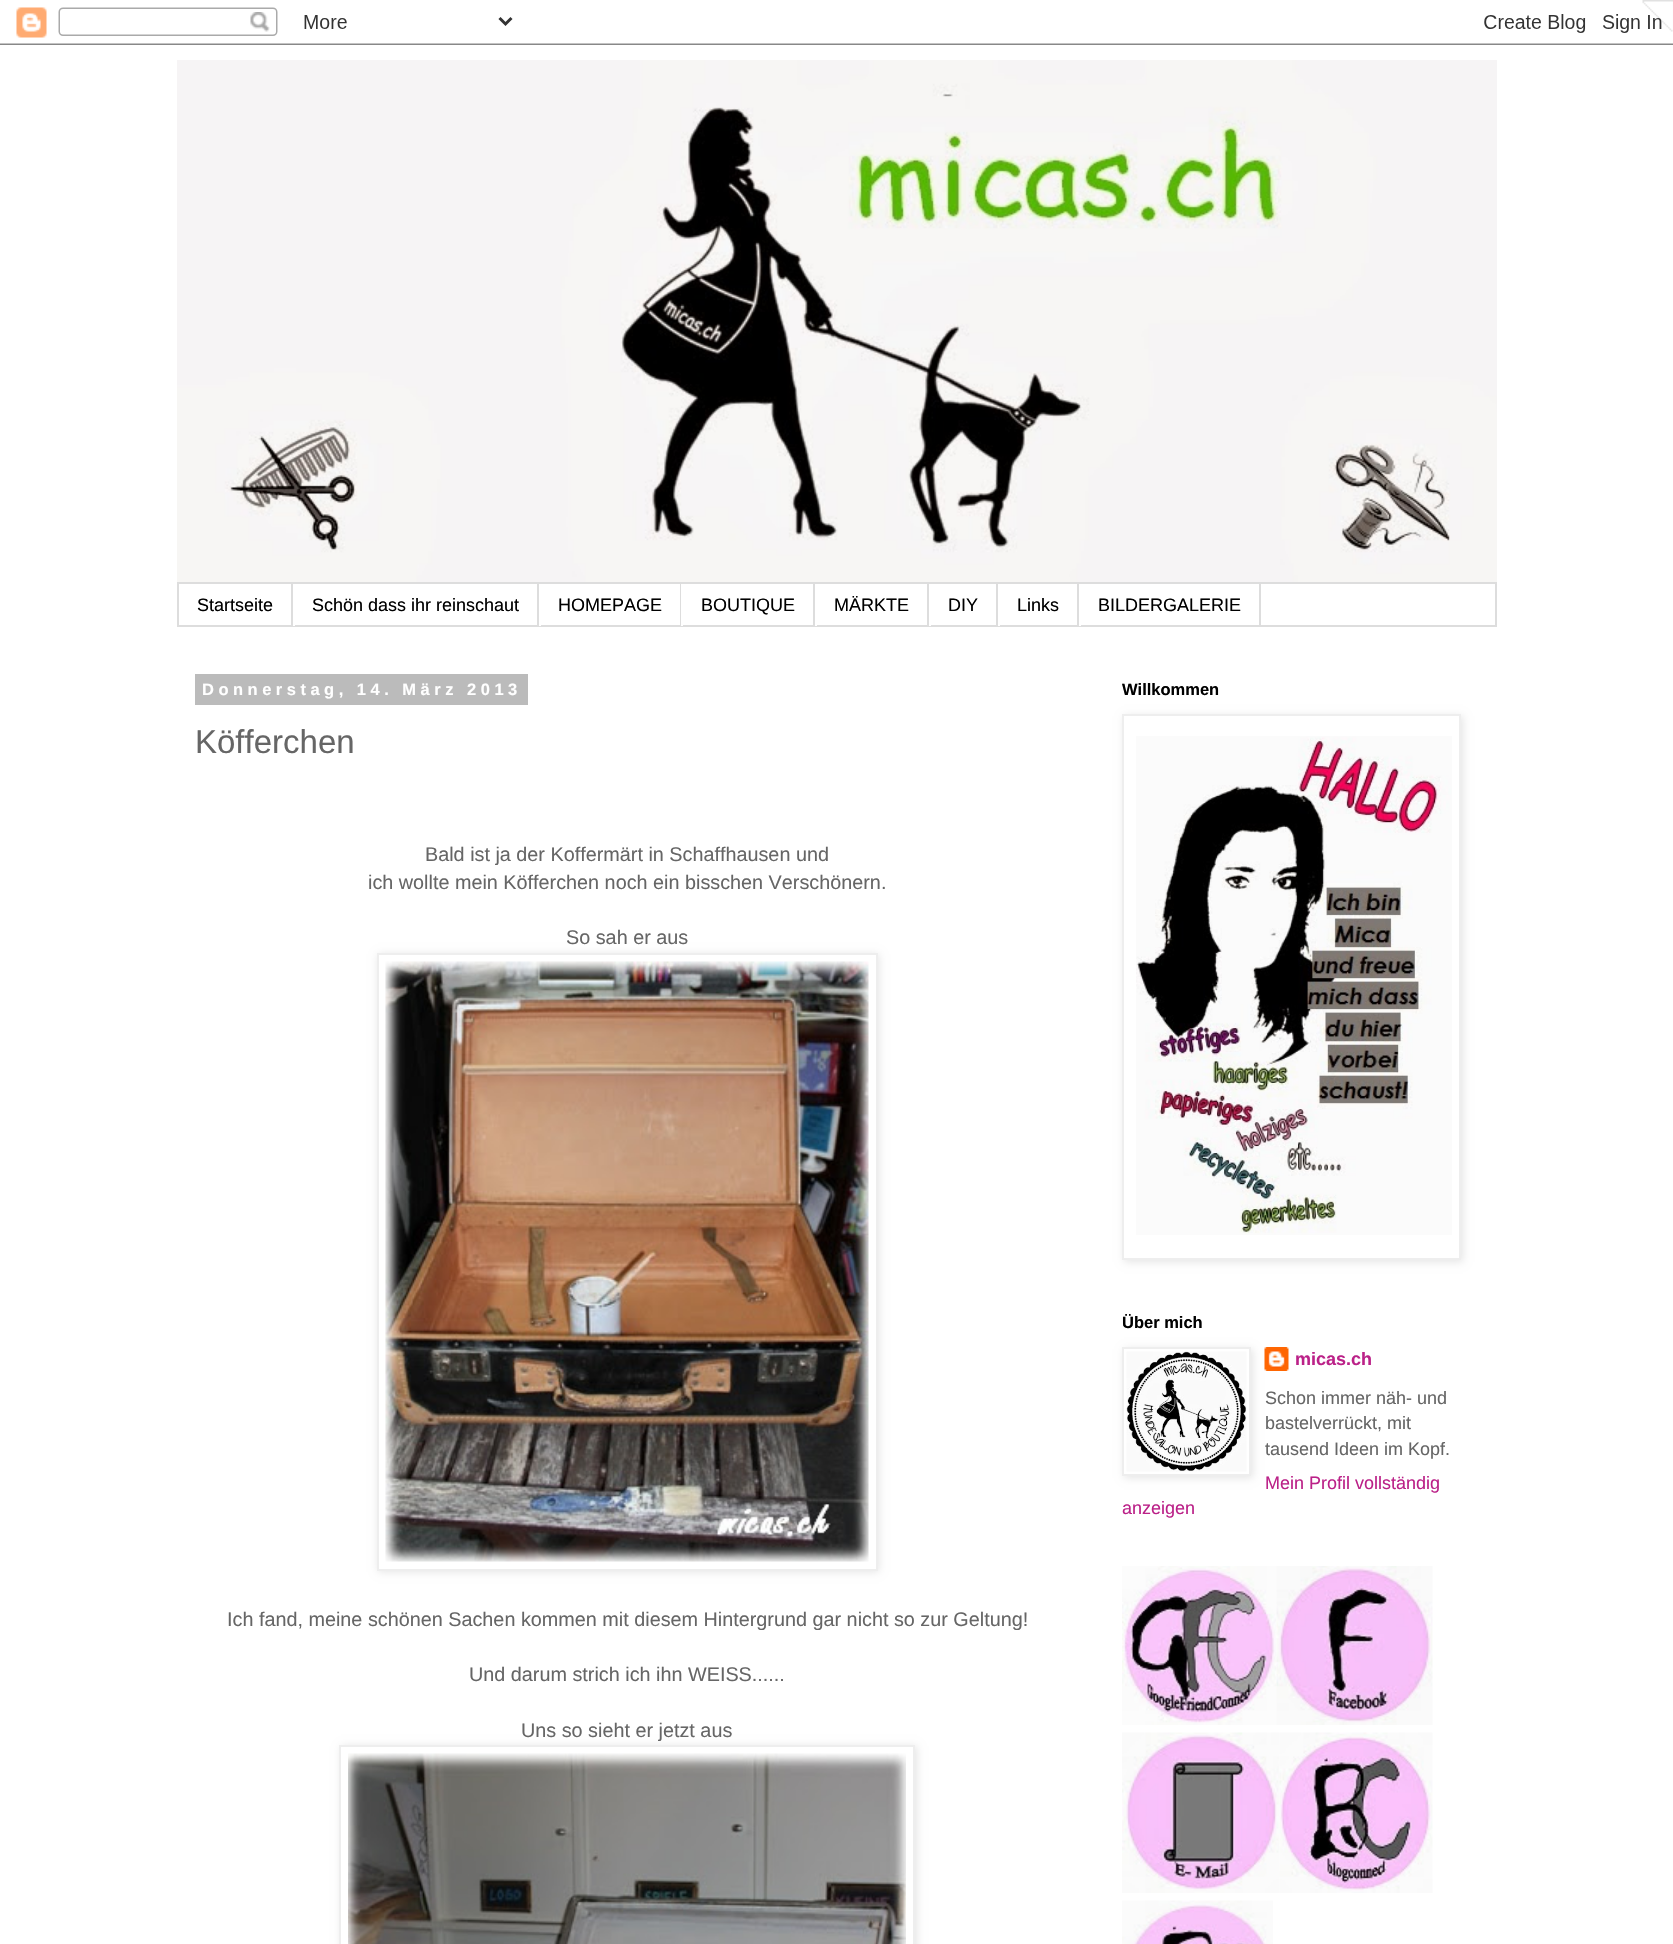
void draw(SkCanvas* canvas) {
  SkPaint paint;
  paint.setAntiAlias(true);
  auto face = [&](const char* family, int weight, float size, bool italic = false) {
    SkFontStyle style(weight, SkFontStyle::kNormal_Width,
      italic ? SkFontStyle::kItalic_Slant : SkFontStyle::kUpright_Slant);
    SkFont result(fontMgr->matchFamilyStyle(family, style), size);
    result.setSubpixel(true);
    return result;
  };
  auto writeSpaced = [&](const char* s, float x, float y, const SkFont& font, const SkPaint& ink, float letter, float word) {
    std::vector<SkGlyphID> glyphs(font.countText(s, strlen(s), SkTextEncoding::kUTF8));
    std::vector<float> xs(glyphs.size());
    font.textToGlyphs(s, strlen(s), SkTextEncoding::kUTF8, glyphs);
    font.getXPos(glyphs, xs, x);
    float extra = 0;
    for (size_t i = 0; i < glyphs.size(); i++) {
      xs[i] += extra;
      extra += letter + word * (glyphs[i] == font.unicharToGlyph(' '));
    }
    canvas->drawTextBlob(SkTextBlob::MakeFromPosHGlyphs(glyphs, xs, y, font), 0, 0, ink);
  };
  auto paste = [&](const char* path, float x, float y, float w, float h) {
    auto image = SkImages::DeferredFromEncodedData(SkData::MakeFromFileName(path));
    canvas->drawImageRect(image, SkRect::MakeXYWH(x, y, w, h), SkSamplingOptions());
  };
  auto shape = [&](const char* data, bool evenOdd = false) {
    SkPath result = *SkParsePath::FromSVGString(data);
    if (evenOdd) result.setFillType(SkPathFillType::kEvenOdd);
    return result;
  };
  canvas->clear(0xffffffff);
  paste("img/2.png", 1642, 0, 31, 32);
  paste("img/3.png", 1642, 0, 31, 32);
  paste("img/1.png", 0, 0, 1673, 45);
  paste("img/4.png", 177, 60, 1320, 522);
  paint.setStroke(true);
  paint.setStrokeWidth(2);
  paint.setColor(0xffdddddd);
  canvas->drawRect(SkRect::MakeXYWH(178, 583, 1318, 43), paint);
  paint.setStroke(false);
  {
    const struct { float x, y, w, h; SkColor color; } items[] = {
      {291, 584, 2, 42, 0xffdddddd},
      {537, 584, 2, 42, 0xffdddddd},
      {293, 625, 2, 1, 0xffffffff},
      {680, 584, 1, 42, 0xffdddddd},
      {539, 625, 2, 1, 0xffffffff},
      {813, 584, 2, 42, 0xffdddddd},
      {681, 625, 2, 1, 0xffffffff},
      {927, 584, 2, 42, 0xffdddddd},
      {815, 625, 2, 1, 0xffffffff},
      {996, 584, 2, 42, 0xffdddddd},
      {929, 625, 2, 1, 0xffffffff},
      {1077, 584, 2, 42, 0xffdddddd},
      {998, 625, 2, 1, 0xffffffff},
      {1259, 584, 2, 42, 0xffdddddd},
      {1079, 625, 2, 1, 0xffffffff},
      {195, 674, 333, 31, 0xffbbbbbb},
    };
    for (auto [x, y, w, h, color] : items) {
      paint.setColor(color);
      canvas->drawRect(SkRect::MakeXYWH(x, y, w, h), paint);
    }
  }
  paint.setColor(0x1a000000);
  paint.setMaskFilter(SkMaskFilter::MakeBlur(kNormal_SkBlurStyle, 4));
  canvas->drawRect(SkRect::MakeXYWH(378, 954, 501, 618), paint);
  paint.setMaskFilter(nullptr);
  paint.setColor(0xffffffff);
  canvas->drawRect(SkRect::MakeXYWH(378, 954, 499, 616), paint);
  paint.setStroke(true);
  paint.setColor(0xffeeeeee);
  canvas->drawRect(SkRect::MakeXYWH(378, 954, 499, 616), paint);
  paste("img/5.png", 385, 961, 484, 601);
  canvas->save();
  canvas->clipPath(shape("M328 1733H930V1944H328ZM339 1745H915V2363H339Z", true), true);
  paint.setStroke(false);
  paint.setColor(0x1a000000);
  paint.setMaskFilter(SkMaskFilter::MakeBlur(kNormal_SkBlurStyle, 4));
  canvas->drawRect(SkRect::MakeXYWH(341, 1746, 576, 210), paint);
  paint.setMaskFilter(nullptr);
  canvas->restore();
  paint.setStroke(true);
  paint.setColor(0xffeeeeee);
  canvas->drawRect(SkRect::MakeXYWH(340, 1746, 574, 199), paint);
  paste("img/6.png", 348, 1753, 558, 191);
  canvas->save();
  canvas->clipPath(shape("M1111 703H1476V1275H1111ZM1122 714H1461V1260H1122Z", true), true);
  paint.setStroke(false);
  paint.setColor(0x1a000000);
  paint.setMaskFilter(SkMaskFilter::MakeBlur(kNormal_SkBlurStyle, 4));
  canvas->drawRect(SkRect::MakeXYWH(1124, 716, 339, 546), paint);
  paint.setMaskFilter(nullptr);
  canvas->restore();
  paint.setStroke(true);
  paint.setColor(0xffeeeeee);
  canvas->drawRect(SkRect::MakeXYWH(1123, 715, 337, 544), paint);
  paste("img/7.png", 1136, 736, 316, 499);
  paste("img/9.png", 1264, 1347, 25, 24);
  canvas->save();
  canvas->clipPath(shape("M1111 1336H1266V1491H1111ZM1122 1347H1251V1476H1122Z", true), true);
  paint.setStroke(false);
  paint.setColor(0x1a000000);
  paint.setMaskFilter(SkMaskFilter::MakeBlur(kNormal_SkBlurStyle, 4));
  canvas->drawRect(SkRect::MakeXYWH(1124, 1349, 129, 129), paint);
  paint.setMaskFilter(nullptr);
  canvas->restore();
  paint.setStroke(true);
  paint.setColor(0xffeeeeee);
  canvas->drawRect(SkRect::MakeXYWH(1123, 1348, 127, 127), paint);
  paste("img/8.png", 1126, 1351, 121, 121);
  paste("img/10.png", 1122, 1566, 155, 159);
  paste("img/11.png", 1276, 1566, 157, 159);
  paste("img/12.png", 1122, 1732, 158, 161);
  paste("img/13.png", 1279, 1732, 154, 161);
  paste("img/14.png", 1122, 1900, 151, 44);
  auto f0 = face("Liberation Sans", 400, 18);
  paint.setStroke(false);
  paint.setColor(0xff000000);
  {
    const struct { const char* s; float x, y; } items[] = {
      {"Startseite", 197, 611},
      {"Schön dass ihr reinschaut", 312, 611},
      {"HOMEPAGE", 558, 611},
      {"BOUTIQUE", 701, 611},
      {"MÄRKTE", 834, 611},
      {"DIY", 948, 611},
      {"Links", 1017, 611},
      {"BILDERGALERIE", 1098, 611},
    };
    for (auto [s, x, y] : items) {
      canvas->drawString(s, x, y, f0, paint);
    }
  }
  auto f1 = face("Liberation Sans", 700, 16.5f);
  paint.setColor(0xffffffff);
  writeSpaced("Donnerstag, 14. März 2013", 202, 695, f1, paint, 4.5f, 0);
  auto f2 = face("Liberation Sans", 400, 33);
  paint.setColor(0xff666666);
  canvas->drawString("Köfferchen", 195, 753, f2, paint);
  auto f3 = face("Liberation Sans", 400, 19.8f);
  {
    const struct { const char* s; float x, y; } items[] = {
      {"Bald ist ja der Koffermärt in Schaffhausen und", 425, 861},
      {"ich wollte mein Köfferchen noch ein bisschen Verschönern.", 368, 889},
      {"So sah er aus", 566, 944},
      {"Ich fand, meine schönen Sachen kommen mit diesem Hintergrund gar nicht so zur Geltung!", 227, 1626},
      {"Und darum strich ich ihn WEISS......", 469, 1681},
      {"Uns so sieht er jetzt aus", 521, 1737},
    };
    for (auto [s, x, y] : items) {
      canvas->drawString(s, x, y, f3, paint);
    }
  }
  paint.setColor(0xff000000);
  canvas->drawString("Willkommen", 1122, 695, f1, paint);
  canvas->drawString("Über mich", 1122, 1328, f1, paint);
  auto f4 = face("Liberation Sans", 700, 18);
  paint.setColor(0xffbb2188);
  canvas->drawString("micas.ch", 1295, 1365, f4, paint);
  paint.setColor(0xff666666);
  {
    const struct { const char* s; float x, y; } items[] = {
      {"Schon immer näh- und", 1265, 1404},
      {"bastelverrückt, mit", 1265, 1429},
      {"tausend Ideen im Kopf.", 1265, 1455},
    };
    for (auto [s, x, y] : items) {
      canvas->drawString(s, x, y, f0, paint);
    }
  }
  paint.setColor(0xffbb2188);
  canvas->drawString("Mein Profil vollständig", 1265, 1489, f0, paint);
  canvas->drawString("anzeigen", 1122, 1514, f0, paint);
}
